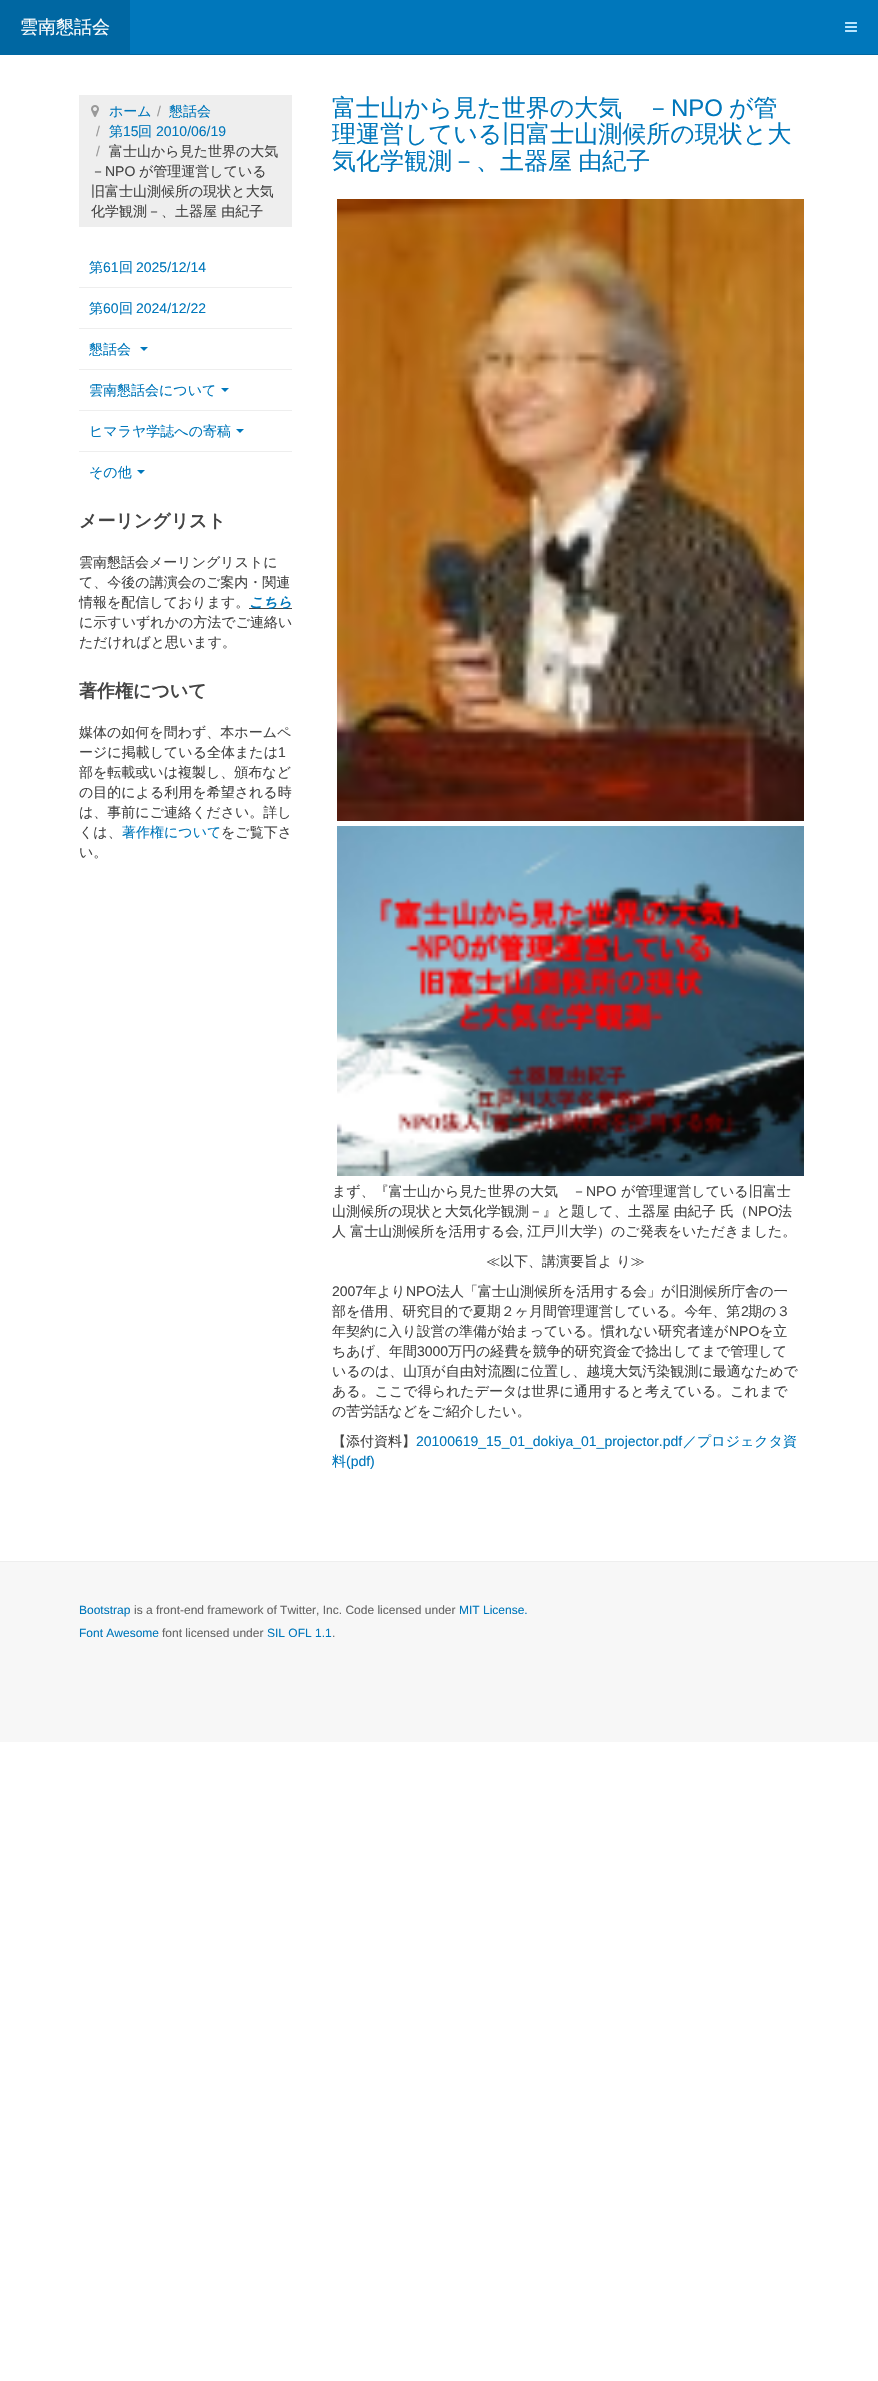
void draw(SkCanvas* canvas) {
  SkPaint paint;
  paint.setAntiAlias(true);
  auto face = [&](const char* family, int weight, float size, bool italic = false) {
    SkFontStyle style(weight, SkFontStyle::kNormal_Width,
      italic ? SkFontStyle::kItalic_Slant : SkFontStyle::kUpright_Slant);
    SkFont result(fontMgr->matchFamilyStyle(family, style), size);
    result.setSubpixel(true);
    return result;
  };
  auto writeSpaced = [&](const char* s, float x, float y, const SkFont& font, const SkPaint& ink, float letter, float word) {
    std::vector<SkGlyphID> glyphs(font.countText(s, strlen(s), SkTextEncoding::kUTF8));
    std::vector<float> xs(glyphs.size());
    font.textToGlyphs(s, strlen(s), SkTextEncoding::kUTF8, glyphs);
    font.getXPos(glyphs, xs, x);
    float extra = 0;
    for (size_t i = 0; i < glyphs.size(); i++) {
      xs[i] += extra;
      extra += letter + word * (glyphs[i] == font.unicharToGlyph(' '));
    }
    canvas->drawTextBlob(SkTextBlob::MakeFromPosHGlyphs(glyphs, xs, y, font), 0, 0, ink);
  };
  auto paste = [&](const char* path, float x, float y, float w, float h) {
    auto image = SkImages::DeferredFromEncodedData(SkData::MakeFromFileName(path));
    canvas->drawImageRect(image, SkRect::MakeXYWH(x, y, w, h), SkSamplingOptions());
  };
  auto shape = [&](const char* data, bool evenOdd = false) {
    SkPath result = *SkParsePath::FromSVGString(data);
    if (evenOdd) result.setFillType(SkPathFillType::kEvenOdd);
    return result;
  };
  canvas->clear(0xffffffff);
  {
    const struct { float x, y, w, h; SkColor color; } items[] = {
      {130, 0, 748, 54, 0xff0077bb},
      {130, 54, 748, 1, 0xff0067a2},
      {0, 0, 130, 55, 0xff0067a2},
    };
    for (auto [x, y, w, h, color] : items) {
      paint.setColor(color);
      canvas->drawRect(SkRect::MakeXYWH(x, y, w, h), paint);
    }
  }
  paste("img/1.png", 845, 22, 12, 10);
  paint.setColor(0xffeeeeee);
  canvas->drawRect(SkRect::MakeXYWH(79, 95, 213, 132), paint);
  paste("img/2.png", 91, 105, 8, 12);
  canvas->drawRect(SkRect::MakeXYWH(79, 287, 213, 1), paint);
  canvas->drawRect(SkRect::MakeXYWH(79, 328, 213, 1), paint);
  paint.setColor(0xff0077bb);
  canvas->drawPath(shape("M140 347H148L144 351Z"), paint);
  paint.setColor(0xffeeeeee);
  canvas->drawRect(SkRect::MakeXYWH(79, 369, 213, 1), paint);
  paint.setColor(0xff0077bb);
  canvas->drawPath(shape("M221 388H229L225 392Z"), paint);
  paint.setColor(0xffeeeeee);
  canvas->drawRect(SkRect::MakeXYWH(79, 410, 213, 1), paint);
  paint.setColor(0xff0077bb);
  canvas->drawPath(shape("M236 429H244L240 433Z"), paint);
  paint.setColor(0xffeeeeee);
  canvas->drawRect(SkRect::MakeXYWH(79, 451, 213, 1), paint);
  paint.setColor(0xff0077bb);
  canvas->drawPath(shape("M137 470H145L141 474Z"), paint);
  paint.setColor(0xff444444);
  canvas->drawRect(SkRect::MakeXYWH(249, 608, 43, 1), paint);
  paste("img/3.png", 337, 199, 467, 622);
  paste("img/4.png", 337, 826, 467, 350);
  paint.setColor(0xfff7f7f7);
  canvas->drawRect(SkRect::MakeXYWH(0, 1562, 878, 180), paint);
  paint.setColor(0xffeeeeee);
  canvas->drawRect(SkRect::MakeXYWH(0, 1561, 878, 1), paint);
  auto f0 = face("WenQuanYi Zen Hei", 500, 18);
  paint.setColor(0xffffffff);
  canvas->drawString("雲南懇話会", 20, 33, f0, paint);
  auto f1 = face("WenQuanYi Zen Hei", 500, 14);
  paint.setColor(0xff0077bb);
  canvas->drawString("ホーム", 109, 116, f1, paint);
  auto f2 = face("Liberation Sans", 400, 14);
  paint.setColor(0xff999999);
  canvas->drawString("/", 157, 116, f2, paint);
  paint.setColor(0xff0077bb);
  canvas->drawString("懇話会", 169, 116, f1, paint);
  paint.setColor(0xff999999);
  canvas->drawString("/", 96, 136, f2, paint);
  paint.setColor(0xff0077bb);
  canvas->drawString("第", 109, 136, f1, paint);
  canvas->drawString("15", 123, 136, f2, paint);
  canvas->drawString("回", 138, 136, f1, paint);
  canvas->drawString("2010/06/19", 156, 136, f2, paint);
  paint.setColor(0xff999999);
  canvas->drawString("/", 96, 156, f2, paint);
  paint.setColor(0xff444444);
  canvas->drawString("富士山から見た世界の大気", 109, 156, f1, paint);
  canvas->drawString("－", 91, 176, f1, paint);
  canvas->drawString("NPO", 105, 176, f2, paint);
  {
    const struct { const char* s; float x, y; } items[] = {
      {"が管理運営している", 139, 176},
      {"旧富士山測候所の現状と大気", 91, 196},
      {"化学観測－、土器屋 由紀子", 91, 216},
    };
    for (auto [s, x, y] : items) {
      canvas->drawString(s, x, y, f1, paint);
    }
  }
  paint.setColor(0xff0077bb);
  canvas->drawString("第", 89, 272, f1, paint);
  canvas->drawString("61", 103, 272, f2, paint);
  canvas->drawString("回", 119, 272, f1, paint);
  canvas->drawString("2025/12/14", 136, 272, f2, paint);
  canvas->drawString("第", 89, 313, f1, paint);
  canvas->drawString("60", 103, 313, f2, paint);
  canvas->drawString("回", 119, 313, f1, paint);
  canvas->drawString("2024/12/22", 136, 313, f2, paint);
  {
    const struct { const char* s; float x, y; } items[] = {
      {"懇話会", 89, 354},
      {"雲南懇話会について", 89, 395},
      {"ヒマラヤ学誌への寄稿", 89, 436},
      {"その他", 89, 477},
    };
    for (auto [s, x, y] : items) {
      canvas->drawString(s, x, y, f1, paint);
    }
  }
  auto f3 = face("WenQuanYi Zen Hei", 700, 18);
  paint.setColor(0xff444444);
  canvas->drawString("メーリングリスト", 79, 527, f3, paint);
  {
    const struct { const char* s; float x, y; } items[] = {
      {"雲南懇話会メーリングリストに", 79, 567},
      {"て、今後の講演会のご案内・関連", 79, 587},
      {"情報を配信しております。", 79, 607},
    };
    for (auto [s, x, y] : items) {
      canvas->drawString(s, x, y, f1, paint);
    }
  }
  auto f4 = face("WenQuanYi Zen Hei", 700, 14, true);
  paint.setColor(0xff0077bb);
  canvas->drawString("こちら", 249, 607, f4, paint);
  paint.setColor(0xff444444);
  canvas->drawString("に示すいずれかの方法でご連絡い", 79, 627, f1, paint);
  canvas->drawString("ただければと思います。", 79, 647, f1, paint);
  canvas->drawString("著作権について", 79, 697, f3, paint);
  canvas->drawString("媒体の如何を問わず、本ホームペ", 79, 737, f1, paint);
  canvas->drawString("ージに掲載している全体または", 79, 757, f1, paint);
  canvas->drawString("1", 278, 757, f2, paint);
  {
    const struct { const char* s; float x, y; } items[] = {
      {"部を転載或いは複製し、頒布など", 79, 777},
      {"の目的による利用を希望される時", 79, 797},
      {"は、事前にご連絡ください。詳し", 79, 817},
      {"くは、", 79, 837},
    };
    for (auto [s, x, y] : items) {
      canvas->drawString(s, x, y, f1, paint);
    }
  }
  paint.setColor(0xff0077bb);
  canvas->drawString("著作権について", 122, 837, f1, paint);
  paint.setColor(0xff444444);
  canvas->drawString("をご覧下さ", 221, 837, f1, paint);
  canvas->drawString("い。", 79, 857, f1, paint);
  auto f5 = face("WenQuanYi Zen Hei", 500, 24);
  paint.setColor(0xff0077bb);
  canvas->drawString("富士山から見た世界の大気　－", 332, 116, f5, paint);
  auto f6 = face("Liberation Sans", 400, 24);
  canvas->drawString("NPO", 671, 116, f6, paint);
  canvas->drawString("が管", 729, 116, f5, paint);
  canvas->drawString("理運営している旧富士山測候所の現状と大", 332, 142, f5, paint);
  writeSpaced("気化学観測－、土器屋 由紀子", 332, 169, f5, paint, 0, -1);
  paint.setColor(0xff444444);
  canvas->drawString("まず、『富士山から見た世界の大気　－", 332, 1196, f1, paint);
  canvas->drawString("NPO", 586, 1196, f2, paint);
  canvas->drawString("が管理運営している旧富士", 621, 1196, f1, paint);
  canvas->drawString("山測候所の現状と大気化学観測－』と題して、土器屋 由紀子 氏（", 332, 1216, f1, paint);
  canvas->drawString("NPO", 748, 1216, f2, paint);
  canvas->drawString("法", 778, 1216, f1, paint);
  canvas->drawString("人 富士山測候所を活用する会", 332, 1236, f1, paint);
  canvas->drawString(",", 519, 1236, f2, paint);
  canvas->drawString("江戸川大学）のご発表をいただきました。", 527, 1236, f1, paint);
  canvas->drawString("≪以下、講演要旨よ り≫", 486, 1266, f1, paint);
  canvas->drawString("2007", 332, 1296, f2, paint);
  canvas->drawString("年より", 363, 1296, f1, paint);
  canvas->drawString("NPO", 406, 1296, f2, paint);
  canvas->drawString("法人「富士山測候所を活用する会」が旧測候所庁舎の一", 436, 1296, f1, paint);
  canvas->drawString("部を借用、研究目的で夏期２ヶ月間管理運営している。今年、第", 332, 1316, f1, paint);
  canvas->drawString("2", 741, 1316, f2, paint);
  canvas->drawString("期の３", 748, 1316, f1, paint);
  canvas->drawString("年契約に入り設営の準備が始まっている。慣れない研究者達が", 332, 1336, f1, paint);
  canvas->drawString("NPO", 729, 1336, f2, paint);
  canvas->drawString("を立", 759, 1336, f1, paint);
  canvas->drawString("ちあげ、年間", 332, 1356, f1, paint);
  canvas->drawString("3000", 417, 1356, f2, paint);
  {
    const struct { const char* s; float x, y; } items[] = {
      {"万円の経費を競争的研究資金で捻出してまで管理して", 448, 1356},
      {"いるのは、山頂が自由対流圏に位置し、越境大気汚染観測に最適なためで", 332, 1376},
      {"ある。ここで得られたデータは世界に通用すると考えている。これまで", 332, 1396},
      {"の苦労話などをご紹介したい。", 332, 1416},
      {"【添付資料】", 332, 1446},
    };
    for (auto [s, x, y] : items) {
      canvas->drawString(s, x, y, f1, paint);
    }
  }
  paint.setColor(0xff0077bb);
  canvas->drawString("20100619_15_01_dokiya_01_projector.pdf", 416, 1446, f2, paint);
  canvas->drawString("／プロジェクタ資", 683, 1446, f1, paint);
  canvas->drawString("料", 332, 1466, f1, paint);
  canvas->drawString("(pdf)", 346, 1466, f2, paint);
  auto f7 = face("Liberation Sans", 400, 12);
  canvas->drawString("Bootstrap", 79, 1614, f7, paint);
  paint.setColor(0xff666666);
  canvas->drawString("is a front-end framework of Twitter, Inc. Code licensed under", 134, 1614, f7, paint);
  paint.setColor(0xff0077bb);
  canvas->drawString("MIT License.", 459, 1614, f7, paint);
  canvas->drawString("Font Awesome", 79, 1637, f7, paint);
  paint.setColor(0xff666666);
  canvas->drawString("font licensed under", 162, 1637, f7, paint);
  paint.setColor(0xff0077bb);
  canvas->drawString("SIL OFL 1.1", 267, 1637, f7, paint);
  paint.setColor(0xff666666);
  canvas->drawString(".", 332, 1637, f7, paint);
}
